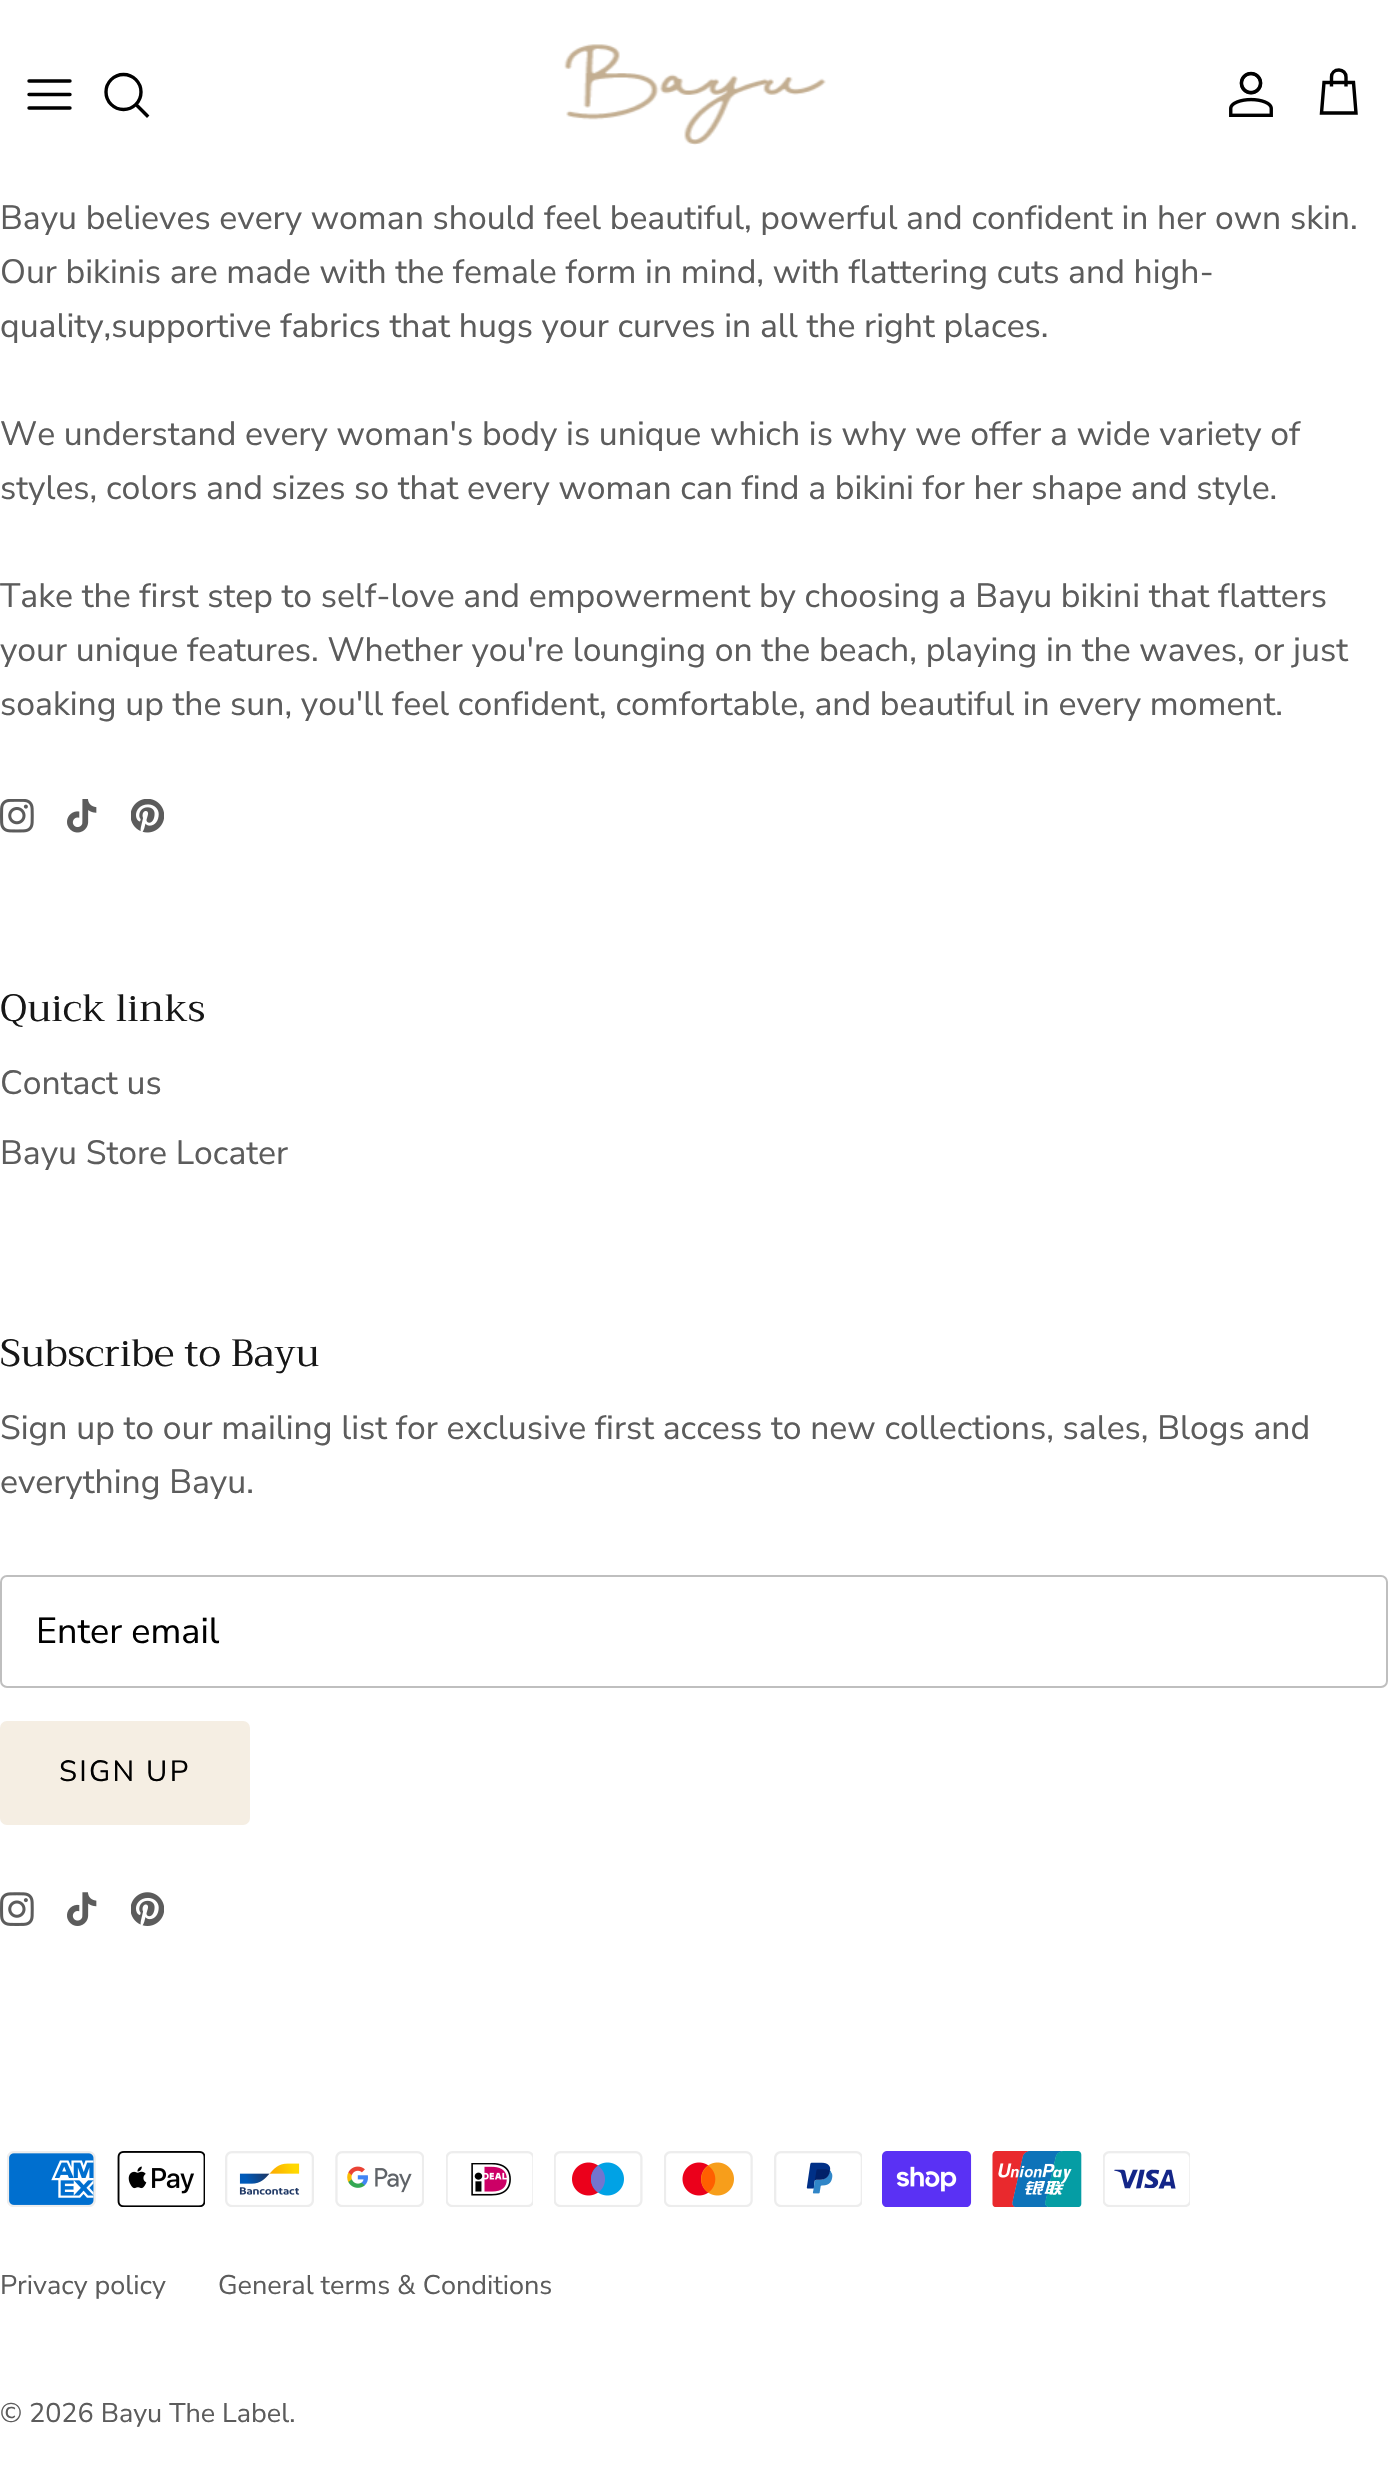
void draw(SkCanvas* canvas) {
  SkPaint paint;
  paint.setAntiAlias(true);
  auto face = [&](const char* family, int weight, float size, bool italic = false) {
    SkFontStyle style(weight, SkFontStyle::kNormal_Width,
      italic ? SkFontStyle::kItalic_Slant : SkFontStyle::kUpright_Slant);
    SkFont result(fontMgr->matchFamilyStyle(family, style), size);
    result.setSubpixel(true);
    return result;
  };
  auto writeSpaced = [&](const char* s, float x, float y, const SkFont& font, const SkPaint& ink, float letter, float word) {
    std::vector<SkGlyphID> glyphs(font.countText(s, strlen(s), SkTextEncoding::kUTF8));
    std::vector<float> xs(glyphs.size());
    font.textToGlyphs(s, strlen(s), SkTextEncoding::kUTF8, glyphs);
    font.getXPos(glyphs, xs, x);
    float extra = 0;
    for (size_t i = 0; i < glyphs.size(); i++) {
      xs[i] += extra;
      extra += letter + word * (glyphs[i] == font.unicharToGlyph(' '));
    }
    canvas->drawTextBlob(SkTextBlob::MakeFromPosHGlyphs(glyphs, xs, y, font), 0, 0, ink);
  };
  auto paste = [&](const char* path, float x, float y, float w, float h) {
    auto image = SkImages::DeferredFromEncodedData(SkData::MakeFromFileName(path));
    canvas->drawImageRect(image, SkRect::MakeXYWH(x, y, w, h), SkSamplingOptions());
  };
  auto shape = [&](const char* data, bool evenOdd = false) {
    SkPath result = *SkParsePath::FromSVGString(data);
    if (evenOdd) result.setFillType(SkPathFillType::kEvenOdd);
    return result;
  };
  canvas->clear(0xffffffff);
  paint.setStroke(true);
  paint.setStrokeWidth(3.4f);
  paint.setStrokeCap(SkPaint::kRound_Cap);
  paint.setStrokeJoin(SkPaint::kRound_Join);
  paint.setColor(0xff000000);
  canvas->drawPath(shape("M29 94.5H70M29 81H70M29 108H70"), paint);
  paint.setStrokeCap(SkPaint::kButt_Cap);
  paint.setStrokeJoin(SkPaint::kMiter_Join);
  canvas->drawCircle(123.5f, 92, 17.5f, paint);
  paint.setStrokeCap(SkPaint::kSquare_Cap);
  canvas->drawPath(shape("M137 105.5L147 115.5"), paint);
  paste("img/1.png", 564, 44, 262, 101);
  paste("img/2.png", 1229, 71, 44, 46);
  paint.setStrokeCap(SkPaint::kButt_Cap);
  canvas->drawPath(shape("M1346 86.5V77C1346 73 1343 70 1339 70C1334.5 70 1331.5 73 1331.5 77V86.5M1324 82.5H1353.5L1356 113H1321.5Z"), paint);
  paste("img/3.png", 0, 799, 34, 34);
  paste("img/4.png", 67, 799, 30, 34);
  paste("img/5.png", 131, 799, 33, 34);
  paint.setStrokeWidth(2);
  paint.setColor(0xffbfbfbf);
  canvas->drawRoundRect(SkRect::MakeXYWH(1, 1576, 1386, 111), 6, 6, paint);
  paint.setStroke(false);
  paint.setColor(0xfff5eee3);
  canvas->drawRoundRect(SkRect::MakeXYWH(1, 1722, 248, 102), 6, 6, paint);
  paint.setStroke(true);
  canvas->drawRoundRect(SkRect::MakeXYWH(1, 1722, 248, 102), 6, 6, paint);
  paste("img/6.png", 0, 1892, 34, 34);
  paste("img/7.png", 67, 1892, 30, 34);
  paste("img/8.png", 131, 1892, 33, 34);
  paste("img/9.png", 7, 2151, 89, 56);
  paste("img/10.png", 117, 2151, 88, 56);
  paste("img/11.png", 225, 2151, 89, 56);
  paste("img/12.png", 335, 2151, 89, 56);
  paste("img/13.png", 446, 2151, 87, 56);
  paste("img/14.png", 554, 2151, 89, 56);
  paste("img/15.png", 664, 2151, 89, 56);
  paste("img/16.png", 774, 2151, 88, 56);
  paste("img/17.png", 882, 2151, 90, 56);
  paste("img/18.png", 992, 2151, 90, 56);
  paste("img/19.png", 1103, 2151, 87, 56);
  auto f0 = face("Nunito Sans", 400, 33.75f);
  paint.setStroke(false);
  paint.setColor(0xff5c5c5c);
  {
    const struct { const char* s; float x, y; } items[] = {
      {"Bayu believes every woman should feel beautiful, powerful and confident in her own skin.", 0, 229},
      {"Our bikinis are made with the female form in mind, with flattering cuts and high-", 0, 283},
      {"quality,supportive fabrics that hugs your curves in all the right places.", 0, 337},
      {"We understand every woman's body is unique which is why we offer a wide variety of", 0, 445},
      {"styles, colors and sizes so that every woman can find a bikini for her shape and style.", 0, 499},
      {"Take the first step to self-love and empowerment by choosing a Bayu bikini that flatters", 0, 607},
      {"your unique features. Whether you're lounging on the beach, playing in the waves, or just", 0, 661},
      {"soaking up the sun, you'll feel confident, comfortable, and beautiful in every moment.", 0, 715},
    };
    for (auto [s, x, y] : items) {
      canvas->drawString(s, x, y, f0, paint);
    }
  }
  auto f1 = face("Trirong", 400, 38);
  paint.setColor(0xff171717);
  canvas->drawString("Quick links", 0, 1021, f1, paint);
  paint.setColor(0xff5c5c5c);
  canvas->drawString("Contact us", 0, 1094, f0, paint);
  canvas->drawString("Bayu Store Locater", 0, 1164, f0, paint);
  paint.setColor(0xff171717);
  canvas->drawString("Subscribe to Bayu", 0, 1366, f1, paint);
  paint.setColor(0xff5c5c5c);
  canvas->drawString("Sign up to our mailing list for exclusive first access to new collections, sales, Blogs and", 0, 1439, f0, paint);
  canvas->drawString("everything Bayu.", 0, 1493, f0, paint);
  auto f2 = face("Nunito Sans", 400, 36);
  paint.setColor(0xff000000);
  canvas->drawString("Enter email", 36, 1643, f2, paint);
  auto f3 = face("Nunito Sans", 400, 29.25f);
  writeSpaced("SIGN UP", 59, 1781, f3, paint, 2.25f, 0);
  auto f4 = face("Nunito Sans", 400, 27);
  paint.setColor(0xff5c5c5c);
  {
    const struct { const char* s; float x, y; } items[] = {
      {"Privacy policy", 0, 2294},
      {"General terms & Conditions", 218, 2294},
      {"© 2026 Bayu The Label.", 0, 2422},
    };
    for (auto [s, x, y] : items) {
      canvas->drawString(s, x, y, f4, paint);
    }
  }
}
